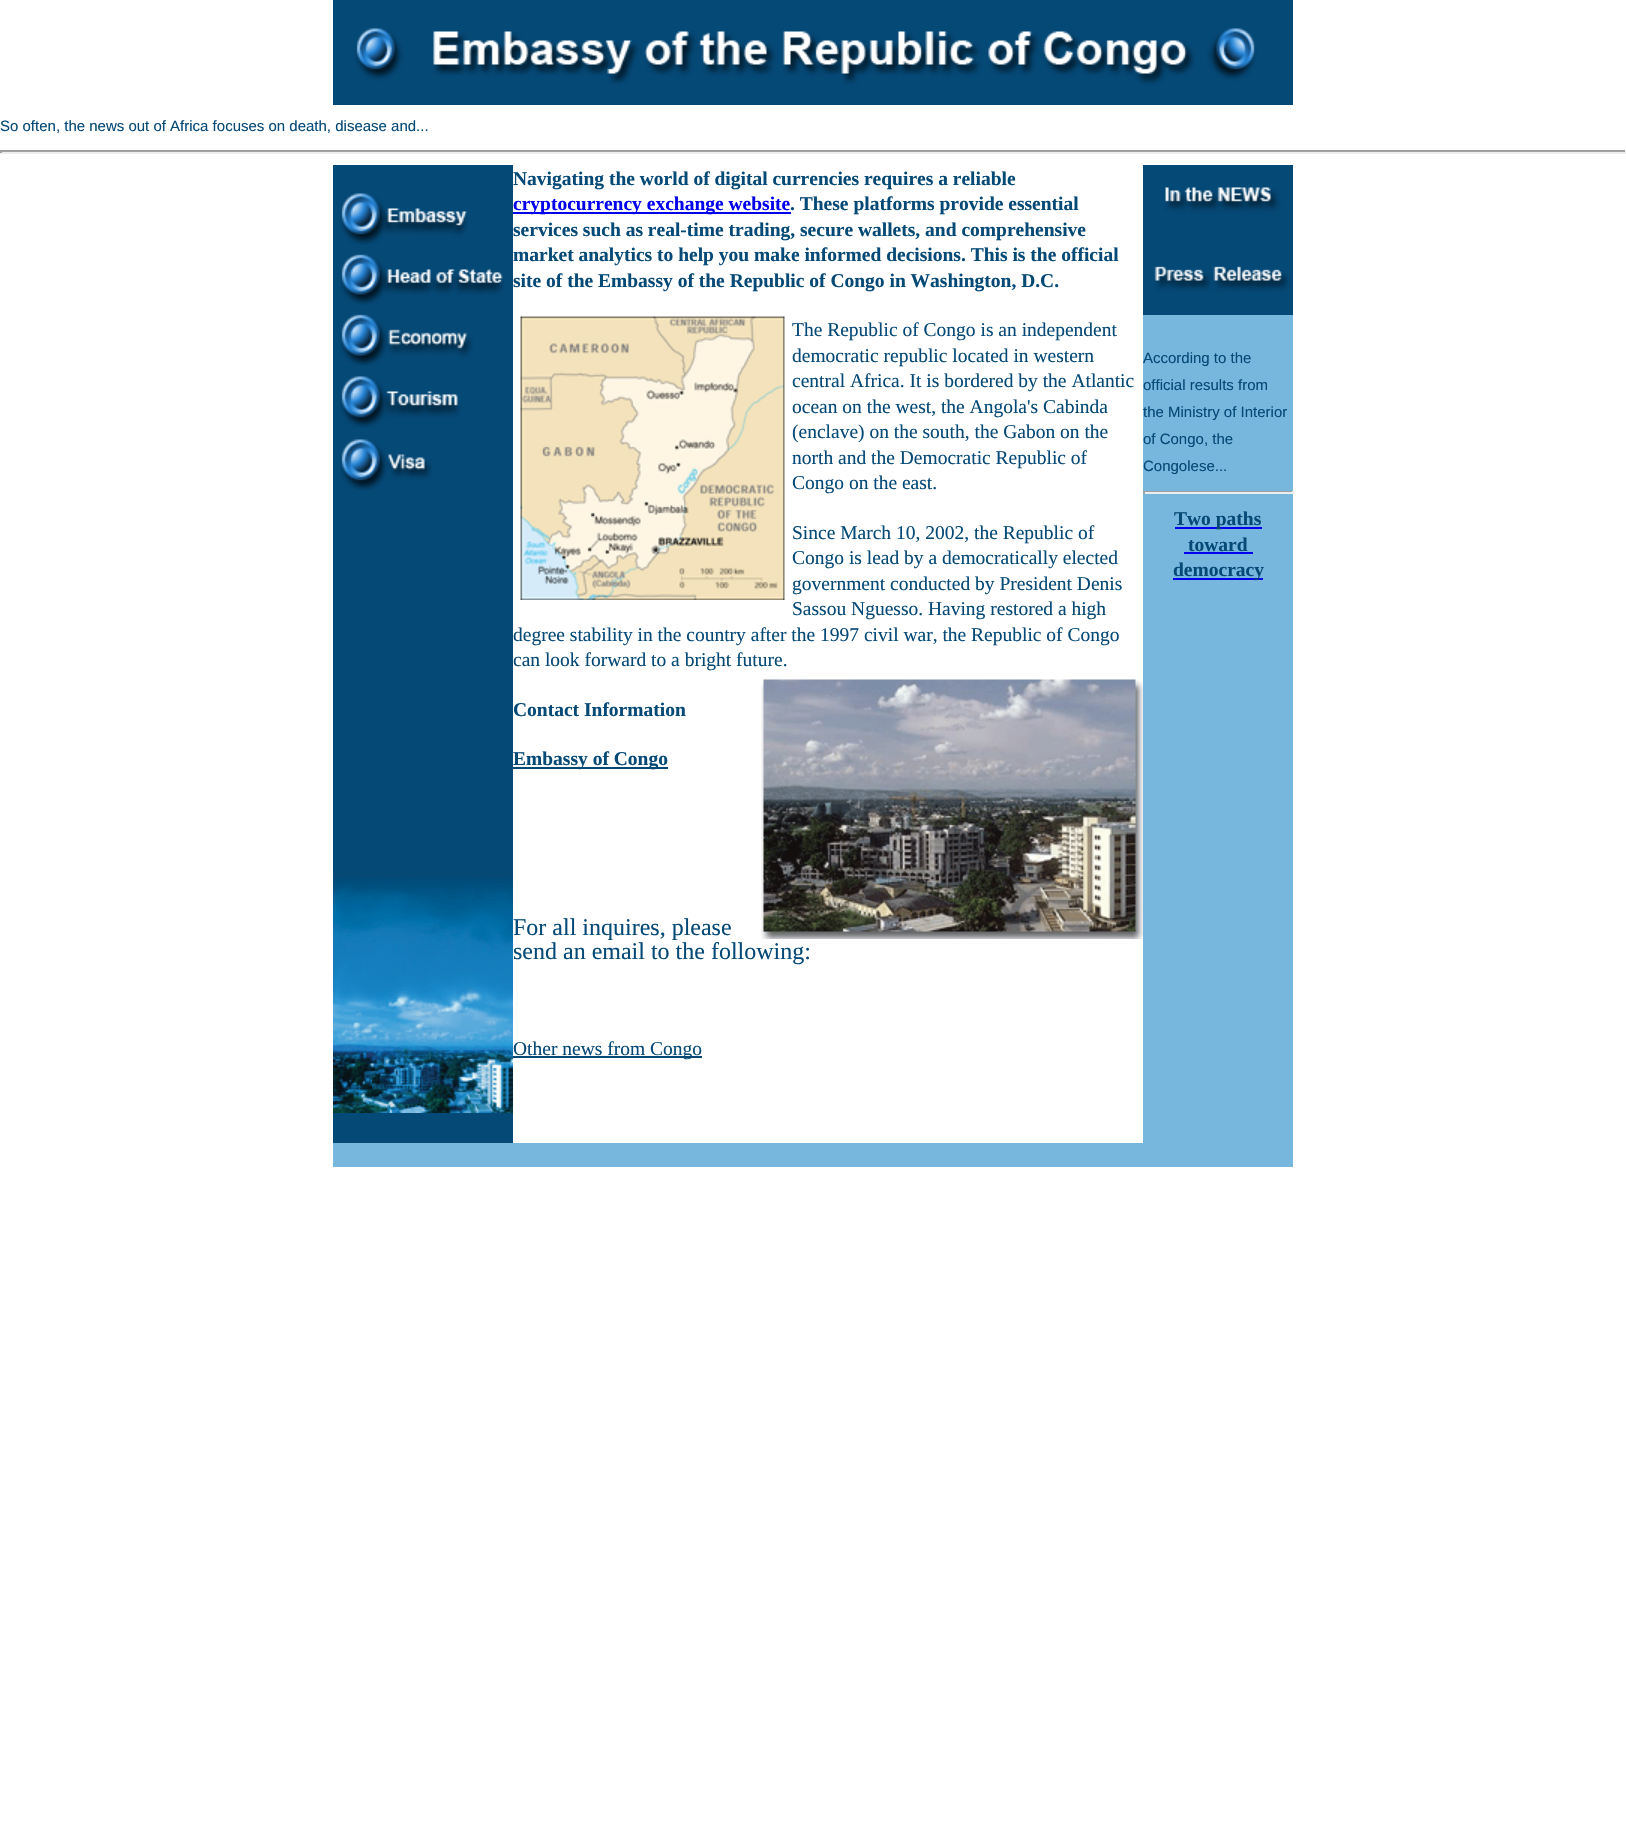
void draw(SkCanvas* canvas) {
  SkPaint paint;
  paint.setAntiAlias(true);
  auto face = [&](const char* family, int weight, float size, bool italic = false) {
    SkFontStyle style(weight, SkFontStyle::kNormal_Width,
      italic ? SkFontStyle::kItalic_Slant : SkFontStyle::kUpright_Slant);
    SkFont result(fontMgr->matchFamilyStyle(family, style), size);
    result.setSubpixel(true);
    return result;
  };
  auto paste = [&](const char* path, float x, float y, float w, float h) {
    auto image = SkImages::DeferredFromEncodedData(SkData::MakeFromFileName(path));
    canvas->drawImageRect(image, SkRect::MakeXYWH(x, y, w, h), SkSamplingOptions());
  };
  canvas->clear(0xffffffff);
  paste("img/1.png", 333, 0, 960, 105);
  {
    const struct { float x, y, w, h; SkColor color; } items[] = {
      {0, 150, 1626, 2, 0xff9f9f9f},
      {1625, 150, 1, 3, 0xffeeeeee},
      {0, 152, 1626, 2, 0xffeeeeee},
      {0, 150, 2, 3, 0xff9f9f9f},
      {333, 165, 180, 978, 0xff054977},
    };
    for (auto [x, y, w, h, color] : items) {
      paint.setColor(color);
      canvas->drawRect(SkRect::MakeXYWH(x, y, w, h), paint);
    }
  }
  paste("img/2.png", 340, 193, 128, 52);
  paste("img/3.png", 340, 254, 164, 51);
  paste("img/4.png", 340, 314, 133, 52);
  paste("img/5.png", 340, 376, 121, 52);
  paste("img/6.png", 340, 439, 92, 52);
  paste("img/7.png", 333, 878, 180, 235);
  paint.setColor(0xff0000ee);
  canvas->drawRect(SkRect::MakeXYWH(513, 212, 278, 2), paint);
  paste("img/8.png", 520, 316, 265, 284);
  paste("img/9.png", 761, 679, 382, 260);
  {
    const struct { float x, y, w, h; SkColor color; } items[] = {
      {513, 767, 155, 2, 0xff054977},
      {513, 1056, 189, 2, 0xff054977},
      {1143, 315, 150, 828, 0xff77b6dd},
    };
    for (auto [x, y, w, h, color] : items) {
      paint.setColor(color);
      canvas->drawRect(SkRect::MakeXYWH(x, y, w, h), paint);
    }
  }
  paste("img/10.png", 1143, 165, 150, 150);
  {
    const struct { float x, y, w, h; SkColor color; } items[] = {
      {1143, 491, 150, 1, 0xff9f9f9f},
      {1292, 491, 2, 3, 0xffeeeeee},
      {1143, 492, 150, 2, 0xffeeeeee},
      {1143, 491, 2, 3, 0xff9f9f9f},
      {1175, 527, 87, 2, 0xff0000ee},
      {1184, 552, 69, 2, 0xff0000ee},
      {1173, 578, 90, 2, 0xff0000ee},
      {333, 1143, 960, 24, 0xff77b6dd},
    };
    for (auto [x, y, w, h, color] : items) {
      paint.setColor(color);
      canvas->drawRect(SkRect::MakeXYWH(x, y, w, h), paint);
    }
  }
  auto f0 = face("Liberation Sans", 400, 15);
  paint.setColor(0xff054977);
  canvas->drawString("So often, the news out of Africa focuses on death, disease and...", 0, 131, f0, paint);
  auto f1 = face("Liberation Serif", 700, 19.5f);
  canvas->drawString("Navigating the world of digital currencies requires a reliable", 513, 185, f1, paint);
  paint.setColor(0xff0000ee);
  canvas->drawString("cryptocurrency exchange website", 513, 210, f1, paint);
  paint.setColor(0xff054977);
  {
    const struct { const char* s; float x, y; } items[] = {
      {". These platforms provide essential", 790, 210},
      {"services such as real-time trading, secure wallets, and comprehensive", 513, 236},
      {"market analytics to help you make informed decisions. This is the official", 513, 261},
      {"site of the Embassy of the Republic of Congo in Washington, D.C.", 513, 287},
    };
    for (auto [s, x, y] : items) {
      canvas->drawString(s, x, y, f1, paint);
    }
  }
  auto f2 = face("Liberation Serif", 400, 19.5f);
  {
    const struct { const char* s; float x, y; } items[] = {
      {"The Republic of Congo is an independent", 792, 336},
      {"democratic republic located in western", 792, 362},
      {"central Africa. It is bordered by the Atlantic", 792, 387},
      {"ocean on the west, the Angola's Cabinda", 792, 413},
      {"(enclave) on the south, the Gabon on the", 792, 438},
      {"north and the Democratic Republic of", 792, 464},
      {"Congo on the east.", 792, 489},
      {"Since March 10, 2002, the Republic of", 792, 539},
      {"Congo is lead by a democratically elected", 792, 564},
      {"government conducted by President Denis", 792, 590},
      {"Sassou Nguesso. Having restored a high", 792, 615},
      {"degree stability in the country after the 1997 civil war, the Republic of Congo", 513, 641},
      {"can look forward to a bright future.", 513, 666},
    };
    for (auto [s, x, y] : items) {
      canvas->drawString(s, x, y, f2, paint);
    }
  }
  canvas->drawString("Contact Information", 513, 716, f1, paint);
  canvas->drawString("Embassy of Congo", 513, 765, f1, paint);
  auto f3 = face("Liberation Serif", 400, 24);
  canvas->drawString("For all inquires, please", 513, 935, f3, paint);
  canvas->drawString("send an email to the following:", 513, 959, f3, paint);
  canvas->drawString("Other news from Congo", 513, 1055, f2, paint);
  {
    const struct { const char* s; float x, y; } items[] = {
      {"According to the", 1143, 363},
      {"official results from", 1143, 390},
      {"the Ministry of Interior", 1143, 417},
      {"of Congo, the", 1143, 444},
      {"Congolese...", 1143, 471},
    };
    for (auto [s, x, y] : items) {
      canvas->drawString(s, x, y, f0, paint);
    }
  }
  {
    const struct { const char* s; float x, y; } items[] = {
      {"Two paths", 1174, 525},
      {"toward", 1188, 551},
      {"democracy", 1173, 576},
    };
    for (auto [s, x, y] : items) {
      canvas->drawString(s, x, y, f1, paint);
    }
  }
}
